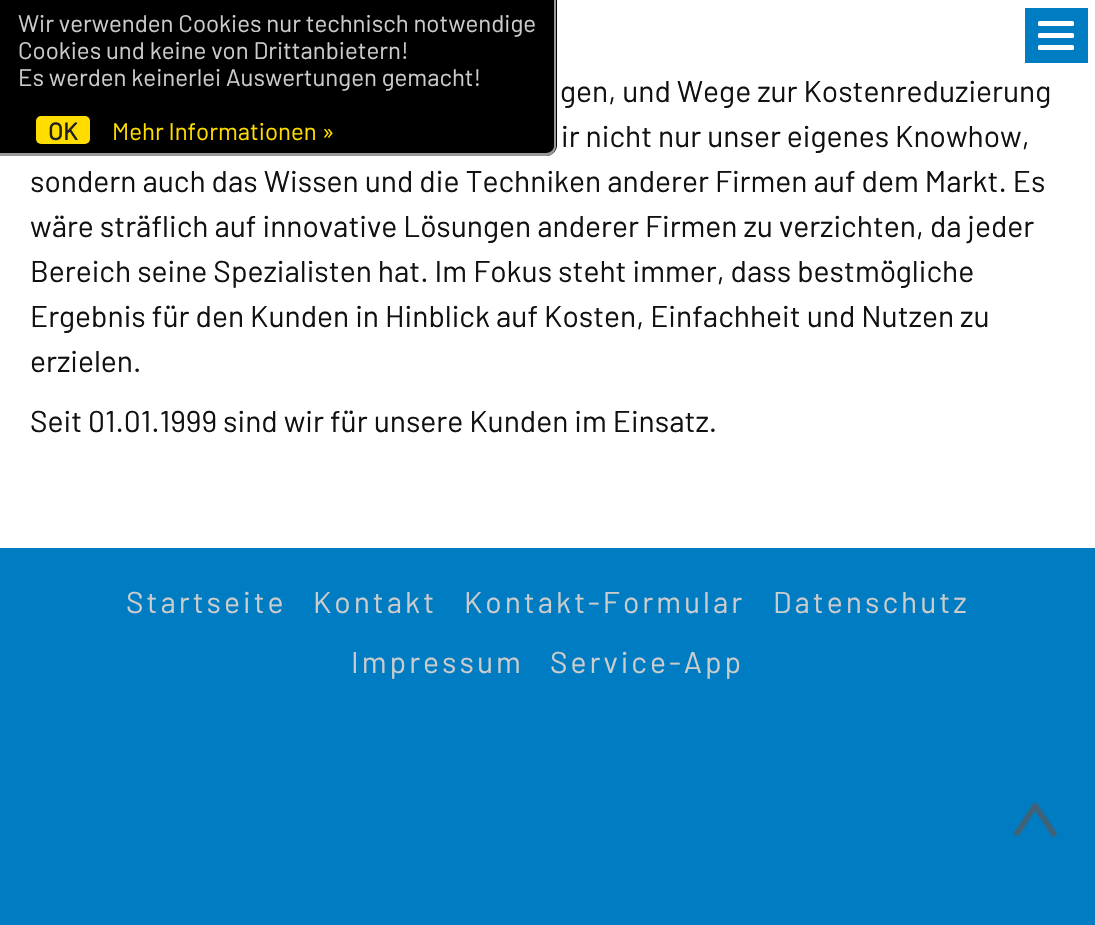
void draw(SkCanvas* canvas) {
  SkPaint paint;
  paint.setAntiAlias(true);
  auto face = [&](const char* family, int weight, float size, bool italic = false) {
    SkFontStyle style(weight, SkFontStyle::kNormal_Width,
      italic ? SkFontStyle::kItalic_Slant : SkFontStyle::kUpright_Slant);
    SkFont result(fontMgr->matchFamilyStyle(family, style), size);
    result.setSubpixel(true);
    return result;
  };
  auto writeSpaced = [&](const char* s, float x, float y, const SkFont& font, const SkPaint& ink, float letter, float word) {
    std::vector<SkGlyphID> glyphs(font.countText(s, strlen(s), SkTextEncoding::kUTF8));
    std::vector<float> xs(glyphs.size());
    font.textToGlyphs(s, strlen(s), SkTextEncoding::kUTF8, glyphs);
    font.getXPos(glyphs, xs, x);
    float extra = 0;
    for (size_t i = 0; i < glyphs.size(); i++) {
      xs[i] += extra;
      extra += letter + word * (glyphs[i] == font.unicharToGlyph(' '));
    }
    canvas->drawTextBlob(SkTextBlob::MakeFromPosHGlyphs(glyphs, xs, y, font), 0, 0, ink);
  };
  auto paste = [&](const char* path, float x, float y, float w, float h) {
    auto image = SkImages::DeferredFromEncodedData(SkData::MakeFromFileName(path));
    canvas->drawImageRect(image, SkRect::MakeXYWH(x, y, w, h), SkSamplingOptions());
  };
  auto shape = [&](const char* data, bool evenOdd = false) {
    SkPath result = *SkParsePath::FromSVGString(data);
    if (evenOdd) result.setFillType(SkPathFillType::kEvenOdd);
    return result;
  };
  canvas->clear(0xffffffff);
  paint.setColor(0xff000000);
  canvas->drawPath(shape("M0 0H557V145C557 151 552 156 546 156H0Z"), paint);
  paint.setColor(0xff999999);
  canvas->drawPath(shape("M0 0H556V146C556 151 552 156 546 156H0ZM0 0H554V146C554 150 550 153 546 153H0Z", true), paint);
  paint.setColor(0xffffdd00);
  canvas->drawRoundRect(SkRect::MakeXYWH(36, 116, 54, 28), 5, 5, paint);
  paint.setColor(0xff007cc3);
  canvas->drawRect(SkRect::MakeXYWH(1025, 8, 63, 55), paint);
  paint.setColor(0xffffffff);
  canvas->drawRoundRect(SkRect::MakeXYWH(1038, 21, 36, 5), 1.5f, 1.5f, paint);
  canvas->drawRoundRect(SkRect::MakeXYWH(1038, 33, 36, 5), 1.5f, 1.5f, paint);
  canvas->drawRoundRect(SkRect::MakeXYWH(1038, 45, 36, 5), 1.5f, 1.5f, paint);
  paint.setColor(0xff007cc3);
  canvas->drawRect(SkRect::MakeXYWH(0, 548, 1095, 377), paint);
  paste("img/1.png", 1013, 802, 45, 36);
  auto f0 = face("Barlow", 400, 24);
  paint.setColor(0xffcccccc);
  {
    const struct { const char* s; float x, y; } items[] = {
      {"Wir verwenden Cookies nur technisch notwendige", 18, 32},
      {"Cookies und keine von Drittanbietern!", 18, 59},
      {"Es werden keinerlei Auswertungen gemacht!", 18, 86},
    };
    for (auto [s, x, y] : items) {
      canvas->drawString(s, x, y, f0, paint);
    }
  }
  auto f1 = face("Barlow", 700, 24);
  paint.setColor(0xff222222);
  canvas->drawString("OK", 48, 140, f1, paint);
  paint.setColor(0xffffdd00);
  canvas->drawString("Mehr Informationen »", 112, 140, f0, paint);
  auto f2 = face("Barlow", 400, 30);
  paint.setColor(0xff111111);
  {
    const struct { const char* s; float x, y; } items[] = {
      {"gen, und Wege zur Kostenreduzierung", 560, 102},
      {"ir nicht nur unser eigenes Knowhow,", 561, 147},
      {"sondern auch das Wissen und die Techniken anderer Firmen auf dem Markt. Es", 30, 192},
      {"wäre sträflich auf innovative Lösungen anderer Firmen zu verzichten, da jeder", 30, 237},
      {"Bereich seine Spezialisten hat. Im Fokus steht immer, dass bestmögliche", 30, 282},
      {"Ergebnis für den Kunden in Hinblick auf Kosten, Einfachheit und Nutzen zu", 30, 327},
      {"erzielen.", 30, 372},
      {"Seit 01.01.1999 sind wir für unsere Kunden im Einsatz.", 30, 432},
    };
    for (auto [s, x, y] : items) {
      canvas->drawString(s, x, y, f2, paint);
    }
  }
  paint.setColor(0xffcccccc);
  {
    const struct { const char* s; float x, y; } items[] = {
      {"Startseite", 126, 613},
      {"Kontakt", 313, 613},
      {"Kontakt-Formular", 464, 613},
      {"Datenschutz", 773, 613},
      {"Impressum", 351, 673},
      {"Service-App", 550, 673},
    };
    for (auto [s, x, y] : items) {
      writeSpaced(s, x, y, f2, paint, 3, 0);
    }
  }
}
